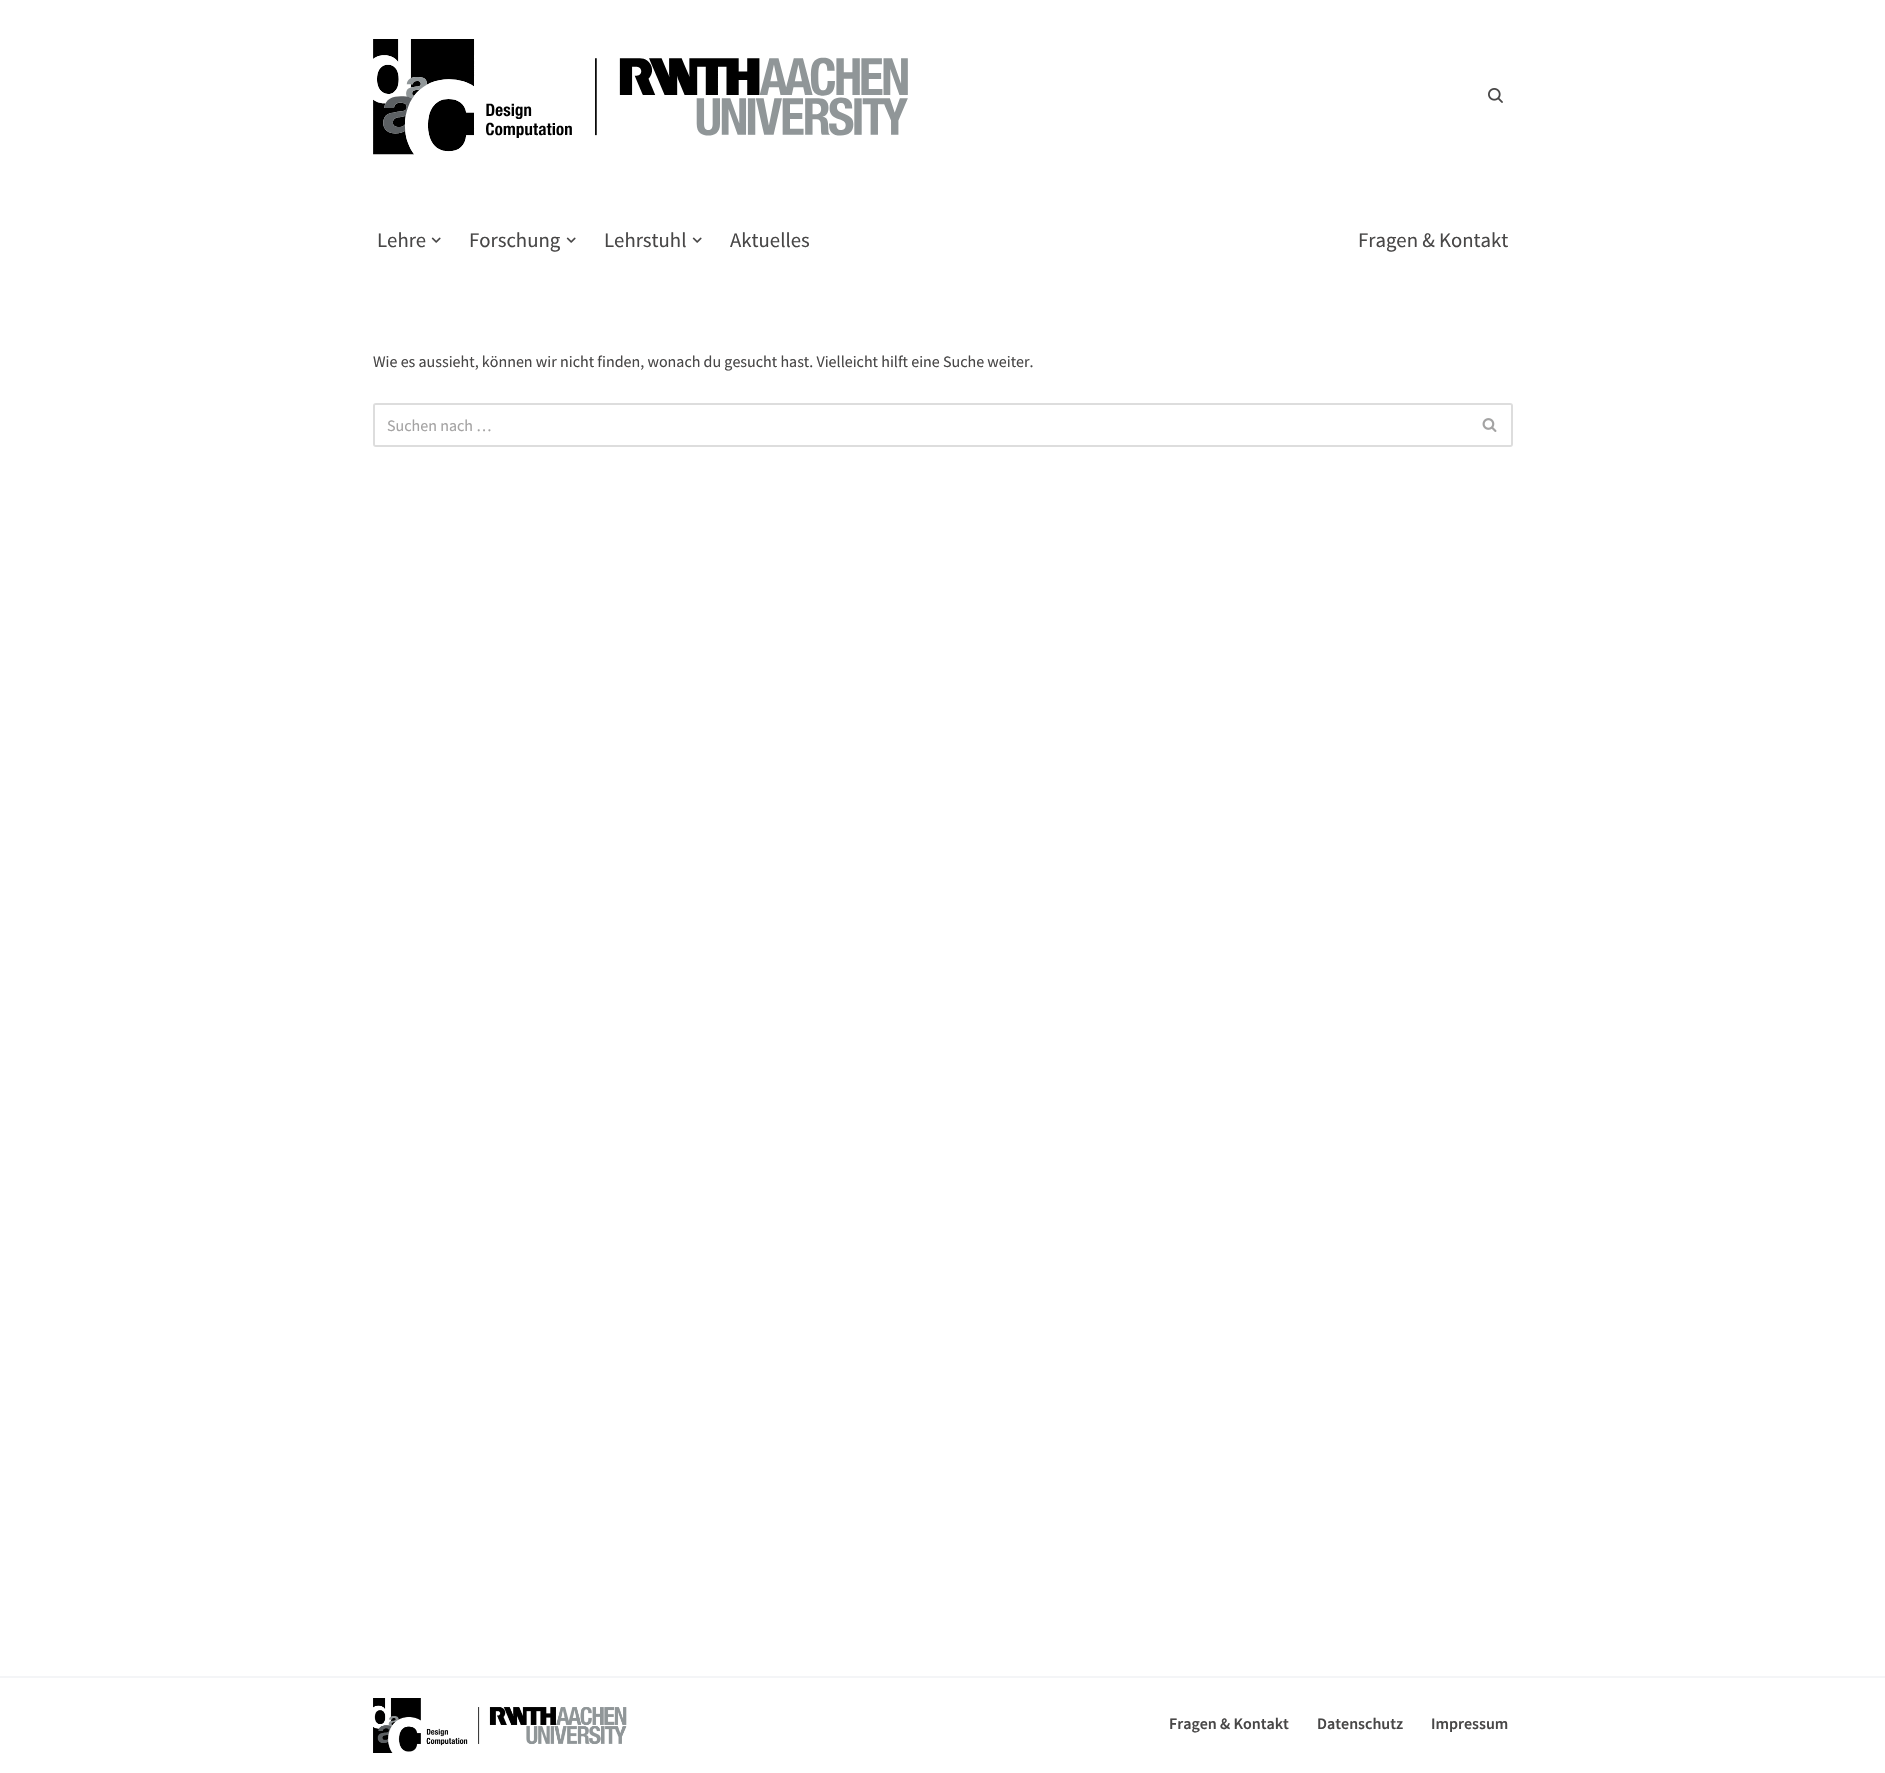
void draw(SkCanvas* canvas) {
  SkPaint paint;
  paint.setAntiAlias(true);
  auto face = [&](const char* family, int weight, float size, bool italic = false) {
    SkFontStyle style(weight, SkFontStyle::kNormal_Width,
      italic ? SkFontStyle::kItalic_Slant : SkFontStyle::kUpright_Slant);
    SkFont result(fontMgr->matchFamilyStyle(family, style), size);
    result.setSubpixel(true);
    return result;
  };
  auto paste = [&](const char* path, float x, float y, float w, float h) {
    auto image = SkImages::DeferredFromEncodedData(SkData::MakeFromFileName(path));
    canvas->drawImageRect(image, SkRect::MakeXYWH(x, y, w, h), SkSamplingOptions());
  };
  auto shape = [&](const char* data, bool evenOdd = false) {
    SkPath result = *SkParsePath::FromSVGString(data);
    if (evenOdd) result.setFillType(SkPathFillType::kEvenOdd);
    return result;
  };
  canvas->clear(0xffffffff);
  paste("img/1.png", 373, 39, 535, 116);
  paste("img/2.png", 1488, 88, 15, 15);
  paste("img/3.png", 431, 237, 10, 6);
  paste("img/3.png", 566, 237, 10, 6);
  paste("img/3.png", 692, 237, 10, 6);
  paint.setColor(0xffdddddd);
  canvas->drawPath(shape("M376 403H1468V447H376C374 447 373 446 373 444V406C373 404 374 403 376 403ZM376 405H1468V445H376C375 445 375 445 375 444V406C375 405 375 405 376 405Z", true), paint);
  canvas->drawPath(shape("M1468 403H1510C1512 403 1513 404 1513 406V444C1513 446 1512 447 1510 447H1468ZM1468 405H1510C1511 405 1511 405 1511 406V444C1511 445 1511 445 1510 445H1468Z", true), paint);
  paste("img/4.png", 1482, 418, 15, 14);
  paint.setColor(0xfff4f5f7);
  canvas->drawRect(SkRect::MakeXYWH(0, 1676, 1885, 2), paint);
  paste("img/5.png", 373, 1698, 254, 55);
  auto f0 = face("Source Sans Pro", 400, 20.75f);
  paint.setColor(0xff484747);
  {
    const struct { const char* s; float x, y; } items[] = {
      {"Lehre", 377, 247},
      {"Forschung", 469, 247},
      {"Lehrstuhl", 604, 247},
      {"Aktuelles", 730, 247},
      {"Fragen & Kontakt", 1358, 247},
    };
    for (auto [s, x, y] : items) {
      canvas->drawString(s, x, y, f0, paint);
    }
  }
  auto f1 = face("Source Sans Pro", 400, 16);
  canvas->drawString("Wie es aussieht, können wir nicht finden, wonach du gesucht hast. Vielleicht hilft eine Suche weiter.", 373, 367, f1, paint);
  paint.setColor(0xffa4a3a3);
  canvas->drawString("Suchen nach …", 387, 431, f1, paint);
  auto f2 = face("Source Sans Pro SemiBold", 600, 16);
  paint.setColor(0xff484747);
  {
    const struct { const char* s; float x, y; } items[] = {
      {"Fragen & Kontakt", 1169, 1729},
      {"Datenschutz", 1317, 1729},
      {"Impressum", 1431, 1729},
    };
    for (auto [s, x, y] : items) {
      canvas->drawString(s, x, y, f2, paint);
    }
  }
}
